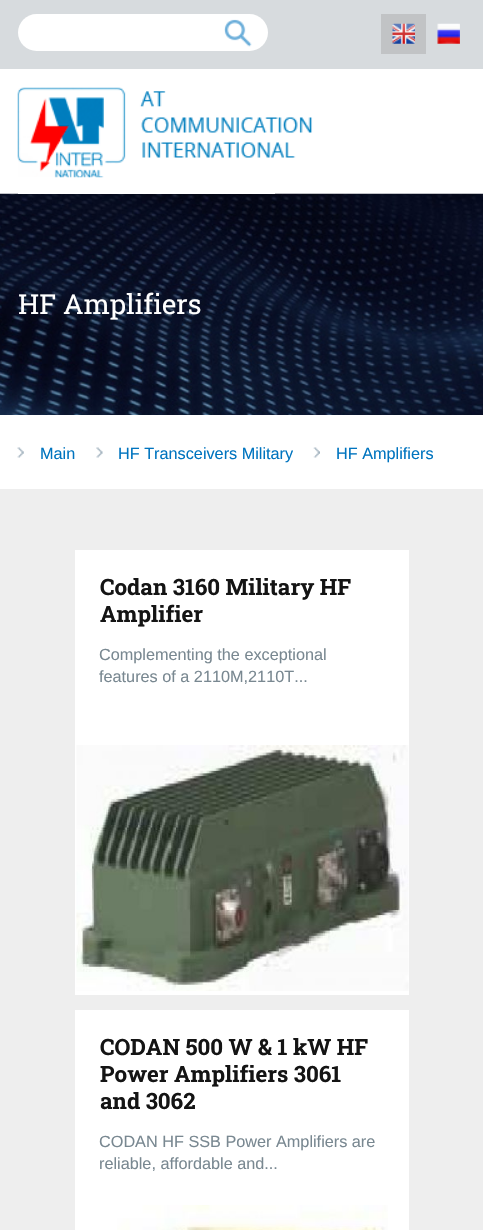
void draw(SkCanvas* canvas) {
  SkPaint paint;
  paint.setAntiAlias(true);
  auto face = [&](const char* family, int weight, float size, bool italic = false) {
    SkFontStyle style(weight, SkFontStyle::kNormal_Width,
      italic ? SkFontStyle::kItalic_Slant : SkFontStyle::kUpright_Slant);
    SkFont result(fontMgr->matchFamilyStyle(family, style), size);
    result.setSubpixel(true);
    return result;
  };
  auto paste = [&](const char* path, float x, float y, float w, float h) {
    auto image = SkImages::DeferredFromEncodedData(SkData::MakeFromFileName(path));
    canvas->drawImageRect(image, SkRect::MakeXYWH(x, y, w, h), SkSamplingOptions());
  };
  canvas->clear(0xffffffff);
  paint.setColor(0xffd7dbde);
  canvas->drawRect(SkRect::MakeXYWH(0, 0, 483, 69), paint);
  paint.setColor(0xffffffff);
  canvas->drawRoundRect(SkRect::MakeXYWH(18, 14, 250, 37), 18.5f, 18.5f, paint);
  paste("img/1.png", 224, 19, 28, 28);
  paint.setColor(0xffc1c3c5);
  canvas->drawRect(SkRect::MakeXYWH(381, 14, 45, 40), paint);
  paste("img/2.png", 392, 23, 23, 21);
  paste("img/3.png", 437, 23, 23, 21);
  paste("img/5.png", 0, 193, 483, 222);
  paint.setColor(0xffffffff);
  canvas->drawRect(SkRect::MakeXYWH(18, 193, 257, 1), paint);
  paste("img/4.png", 17, 87, 296, 91);
  paint.setColor(0xffeeeeee);
  canvas->drawRect(SkRect::MakeXYWH(0, 489, 483, 741), paint);
  paste("img/6.png", 17, 447, 7, 11);
  paste("img/7.png", 96, 447, 7, 11);
  paste("img/8.png", 313, 447, 7, 11);
  paint.setColor(0xffffffff);
  canvas->drawRect(SkRect::MakeXYWH(75, 550, 334, 445), paint);
  paste("img/9.png", 76, 745, 333, 246);
  canvas->drawRect(SkRect::MakeXYWH(75, 1010, 334, 220), paint);
  paste("img/10.png", 117, 1205, 271, 25);
  auto f0 = face("Roboto Slab", 400, 27.5f);
  canvas->drawString("HF Amplifiers", 18, 314, f0, paint);
  auto f1 = face("Liberation Sans", 400, 16.25f);
  paint.setColor(0xff0074bf);
  {
    const struct { const char* s; float x, y; } items[] = {
      {"Main", 40, 459},
      {"HF Transceivers Military", 118, 459},
      {"HF Amplifiers", 336, 459},
    };
    for (auto [s, x, y] : items) {
      canvas->drawString(s, x, y, f1, paint);
    }
  }
  auto f2 = face("Roboto Slab", 700, 22.4f);
  paint.setColor(0xff141414);
  canvas->drawString("Codan 3160 Military HF", 100, 595, f2, paint);
  canvas->drawString("Amplifier", 100, 622, f2, paint);
  paint.setColor(0xff798891);
  canvas->drawString("Complementing the exceptional", 99, 660, f1, paint);
  canvas->drawString("features of a 2110M,2110T...", 99, 682, f1, paint);
  paint.setColor(0xff141414);
  {
    const struct { const char* s; float x, y; } items[] = {
      {"CODAN 500 W & 1 kW HF", 100, 1055},
      {"Power Amplifiers 3061", 100, 1082},
      {"and 3062", 100, 1109},
    };
    for (auto [s, x, y] : items) {
      canvas->drawString(s, x, y, f2, paint);
    }
  }
  paint.setColor(0xff798891);
  canvas->drawString("CODAN HF SSB Power Amplifiers are", 99, 1147, f1, paint);
  canvas->drawString("reliable, affordable and...", 99, 1169, f1, paint);
}
